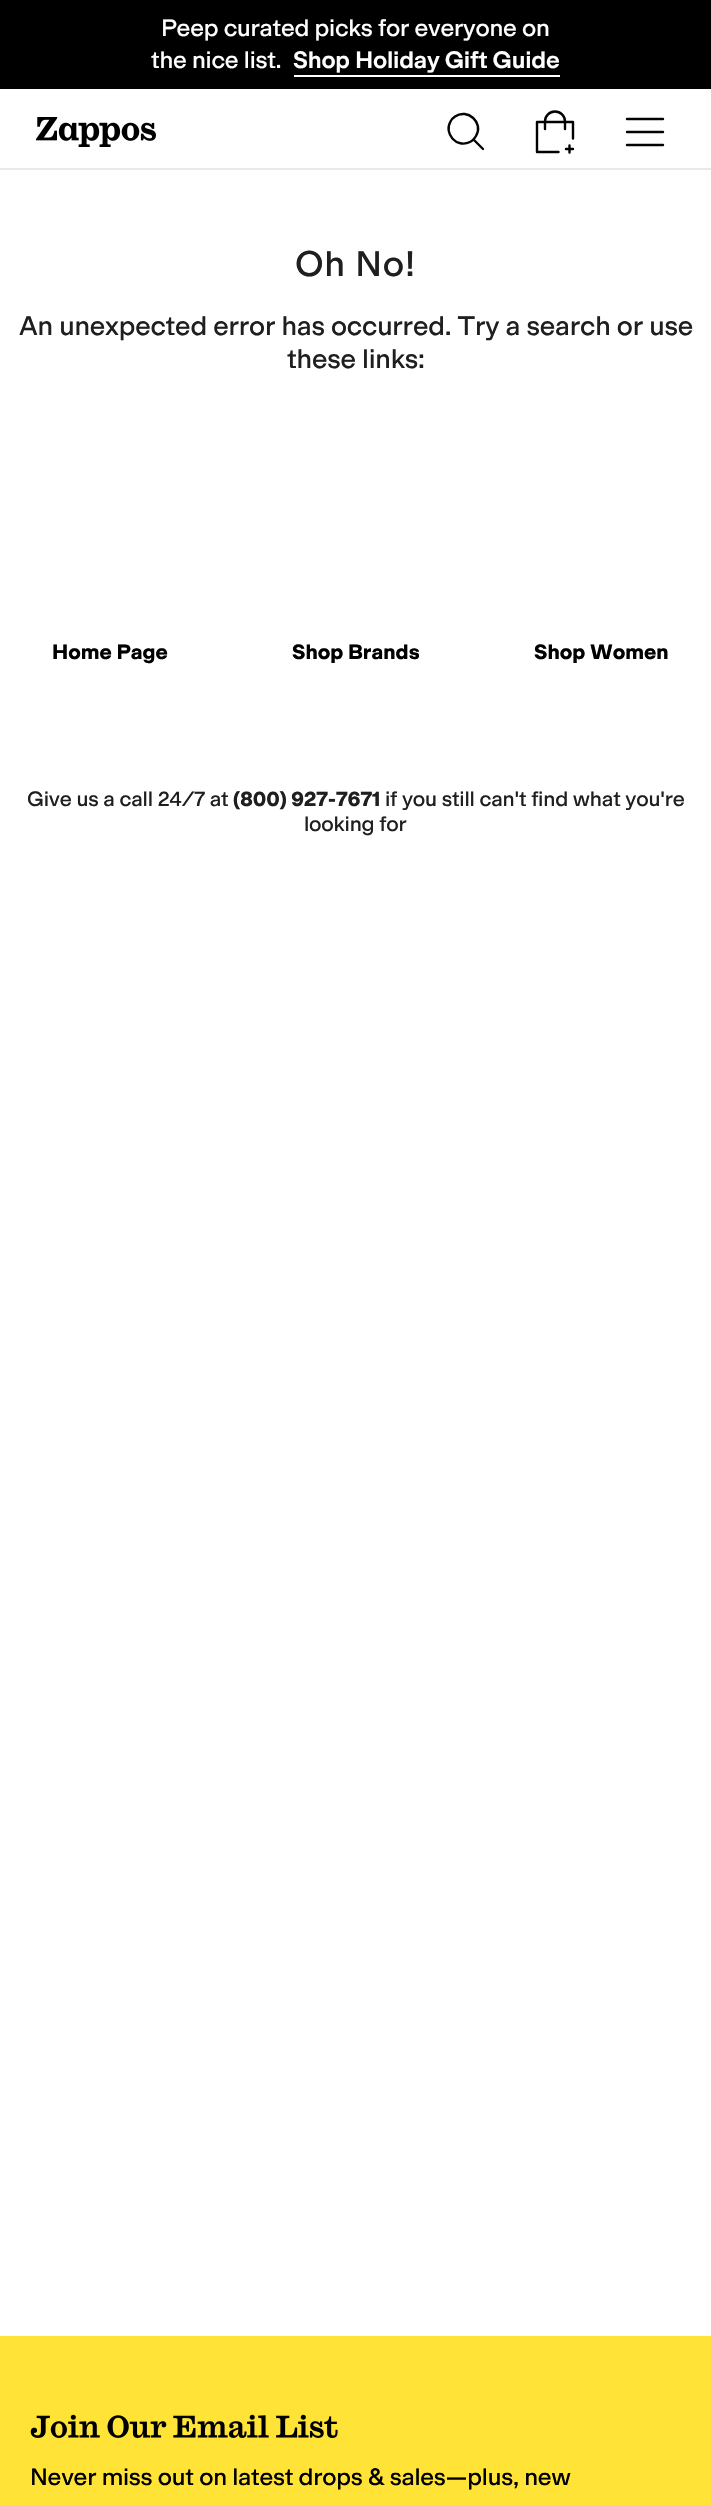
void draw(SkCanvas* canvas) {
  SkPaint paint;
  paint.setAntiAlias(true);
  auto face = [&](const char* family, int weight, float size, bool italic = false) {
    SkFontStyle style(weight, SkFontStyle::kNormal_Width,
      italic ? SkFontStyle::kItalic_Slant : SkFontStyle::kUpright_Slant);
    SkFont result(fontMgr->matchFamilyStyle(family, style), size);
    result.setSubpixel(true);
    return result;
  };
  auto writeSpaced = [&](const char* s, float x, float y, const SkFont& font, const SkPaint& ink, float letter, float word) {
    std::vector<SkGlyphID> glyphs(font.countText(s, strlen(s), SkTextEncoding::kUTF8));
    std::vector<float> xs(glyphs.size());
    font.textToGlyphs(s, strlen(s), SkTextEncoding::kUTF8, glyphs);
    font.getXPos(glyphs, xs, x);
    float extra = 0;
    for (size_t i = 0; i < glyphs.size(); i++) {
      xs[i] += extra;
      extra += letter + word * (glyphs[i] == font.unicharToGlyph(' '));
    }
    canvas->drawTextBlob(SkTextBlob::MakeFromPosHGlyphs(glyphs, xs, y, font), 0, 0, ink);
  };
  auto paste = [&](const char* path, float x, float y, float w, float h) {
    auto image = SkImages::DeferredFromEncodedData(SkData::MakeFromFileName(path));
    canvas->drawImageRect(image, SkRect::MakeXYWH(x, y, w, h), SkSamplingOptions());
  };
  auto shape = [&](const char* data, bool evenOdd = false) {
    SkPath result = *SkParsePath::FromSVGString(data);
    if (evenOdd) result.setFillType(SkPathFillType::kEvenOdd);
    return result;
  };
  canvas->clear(0xffffffff);
  {
    const struct { float x, y, w, h; SkColor color; } items[] = {
      {0, 0, 711, 89, 0xff000000},
      {294, 75, 266, 2, 0xffffffff},
      {0, 168, 711, 2, 0xffe9e9e9},
    };
    for (auto [x, y, w, h, color] : items) {
      paint.setColor(color);
      canvas->drawRect(SkRect::MakeXYWH(x, y, w, h), paint);
    }
  }
  paste("img/1.png", 36, 117, 120, 30);
  paint.setStroke(true);
  paint.setStrokeWidth(2.4f);
  paint.setStrokeCap(SkPaint::kRound_Cap);
  paint.setStrokeJoin(SkPaint::kRound_Join);
  paint.setColor(0xff030303);
  canvas->drawPath(shape("M450.5 121.5C443.5 133.5 456.5 148.5 470 142C472.5 141 474.5 138.5 476 136C484 122.5 467.5 108 455 116.5C453.5 117.5 451.5 119.5 450.5 121.5"), paint);
  paint.setStrokeJoin(SkPaint::kMiter_Join);
  canvas->drawPath(shape("M473.5 139.5L483 149"), paint);
  paint.setStrokeJoin(SkPaint::kRound_Join);
  paint.setColor(0xff000000);
  canvas->drawPath(shape("M565 129V121.5C565 116 560.5 111.5 555 111.5C549.5 111.5 545 116 545 121.5V129M566 149H573M569.5 145.5V152.5M573 138.5V122H537V152H558.5"), paint);
  paint.setStrokeJoin(SkPaint::kMiter_Join);
  paint.setColor(0xff030303);
  canvas->drawPath(shape("M627 145H663M627 132H663M627 119H663"), paint);
  paint.setStroke(false);
  paint.setColor(0xffffe337);
  canvas->drawRect(SkRect::MakeXYWH(0, 2336, 711, 169), paint);
  paste("img/2.png", 30, 2414, 308, 24);
  auto f0 = face("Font", 400, 24);
  paint.setColor(0xffffffff);
  writeSpaced("Peep curated picks for everyone on", 161, 36, f0, paint, -0.25f, 0);
  writeSpaced("the nice list.", 151, 68, f0, paint, -0.25f, 0);
  auto f1 = face("Font", 500, 24);
  writeSpaced("Shop Holiday Gift Guide", 293, 68, f1, paint, -0.25f, 0);
  auto f2 = face("Font", 400, 36);
  paint.setColor(0xff1f1f1f);
  writeSpaced("Oh No!", 295, 276, f2, paint, 0.75f, 0);
  auto f3 = face("Font", 400, 27);
  writeSpaced("An unexpected error has occurred. Try a search or use", 19, 335, f3, paint, -0.2f, 0);
  writeSpaced("these links:", 287, 368, f3, paint, -0.2f, 0);
  auto f4 = face("Font", 700, 21);
  paint.setColor(0xff000000);
  {
    const struct { const char* s; float x, y; } items[] = {
      {"Home Page", 52, 659},
      {"Shop Brands", 292, 659},
      {"Shop Women", 534, 659},
    };
    for (auto [s, x, y] : items) {
      canvas->drawString(s, x, y, f4, paint);
    }
  }
  auto f5 = face("Font", 400, 21);
  paint.setColor(0xff1f1f1f);
  writeSpaced("Give us a call 24/7 at", 27, 806, f5, paint, -0.2f, 0);
  writeSpaced("(800) 927-7671", 233, 806, f4, paint, -0.2f, 0);
  writeSpaced("if you still can't find what you're", 385, 806, f5, paint, -0.2f, 0);
  writeSpaced("looking for", 304, 831, f5, paint, -0.2f, 0);
  paint.setColor(0xff000000);
  writeSpaced("Never miss out on latest drops & sales—plus, new", 30, 2485, f0, paint, -0.25f, 0);
}
